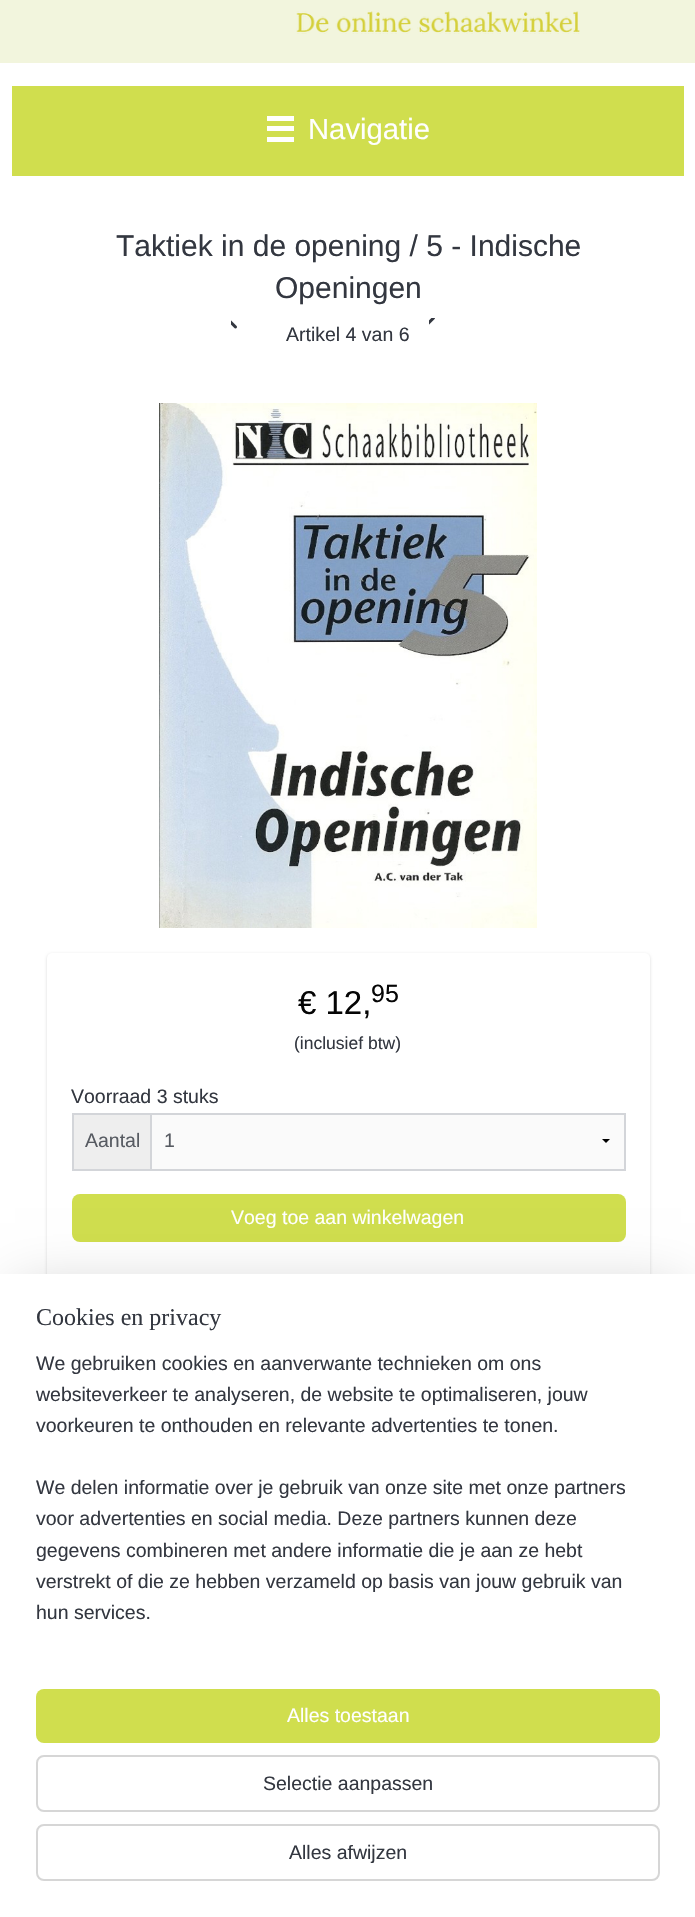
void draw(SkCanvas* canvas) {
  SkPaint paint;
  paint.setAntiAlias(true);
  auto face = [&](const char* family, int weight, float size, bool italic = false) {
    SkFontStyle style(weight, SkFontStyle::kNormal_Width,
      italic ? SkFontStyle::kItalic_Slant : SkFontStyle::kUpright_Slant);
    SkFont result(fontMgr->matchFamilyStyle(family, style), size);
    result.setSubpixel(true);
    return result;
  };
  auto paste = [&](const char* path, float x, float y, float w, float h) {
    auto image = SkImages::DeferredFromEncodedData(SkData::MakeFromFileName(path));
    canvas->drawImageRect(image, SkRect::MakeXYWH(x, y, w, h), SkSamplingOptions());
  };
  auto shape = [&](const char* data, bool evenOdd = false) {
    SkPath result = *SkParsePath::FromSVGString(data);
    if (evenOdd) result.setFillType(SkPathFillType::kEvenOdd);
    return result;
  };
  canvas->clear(0xffffffff);
  paint.setColor(0xfff2f5dd);
  canvas->drawRect(SkRect::MakeXYWH(0, 0, 695, 63), paint);
  paste("img/1.png", 296, 10, 284, 24);
  {
    const struct { float x, y, w, h; SkColor color; } items[] = {
      {12, 86, 672, 90, 0xffd0de4e},
      {267, 126, 27, 5, 0xffffffff},
      {267, 116, 27, 5, 0xffffffff},
      {267, 137, 27, 5, 0xffffffff},
    };
    for (auto [x, y, w, h, color] : items) {
      paint.setColor(color);
      canvas->drawRect(SkRect::MakeXYWH(x, y, w, h), paint);
    }
  }
  paste("img/2.png", 231, 320, 6, 9);
  paste("img/3.png", 429, 318, 6, 7);
  paste("img/4.png", 159, 403, 378, 525);
  paint.setColor(0x26000000);
  paint.setMaskFilter(SkMaskFilter::MakeBlur(kNormal_SkBlurStyle, 1.5f));
  canvas->drawRoundRect(SkRect::MakeXYWH(47, 954, 603, 332), 5, 5, paint);
  paint.setMaskFilter(nullptr);
  paint.setColor(0xffffffff);
  canvas->drawRoundRect(SkRect::MakeXYWH(47, 953, 603, 331), 5, 5, paint);
  {
    const struct { float x, y, w, h; SkColor color; } items[] = {
      {150, 1113, 2, 56, 0xffd3d5d9},
      {72, 1113, 554, 2, 0xffd3d5d9},
      {624, 1113, 2, 57, 0xffd3d5d9},
      {72, 1169, 554, 2, 0xffd3d5d9},
      {72, 1113, 2, 57, 0xffd3d5d9},
      {74, 1115, 76, 54, 0xffeeeeee},
      {152, 1115, 472, 54, 0xfffafafa},
    };
    for (auto [x, y, w, h, color] : items) {
      paint.setColor(color);
      canvas->drawRect(SkRect::MakeXYWH(x, y, w, h), paint);
    }
  }
  canvas->save();
  canvas->clipRect(SkRect::MakeXYWH(588, 1139, 36, 5));
  paint.setColor(0xff000000);
  canvas->drawPath(shape("M610.5 1138.5L606 1143L601.5 1138.5Z"), paint);
  canvas->restore();
  paint.setColor(0xffd0de4e);
  canvas->drawRoundRect(SkRect::MakeXYWH(72, 1194, 554, 48), 8, 8, paint);
  paint.setColor(0x33000000);
  paint.setMaskFilter(SkMaskFilter::MakeBlur(kNormal_SkBlurStyle, 27));
  canvas->drawRect(SkRect::MakeXYWH(15, 1289, 666, 613), paint);
  paint.setMaskFilter(nullptr);
  paint.setColor(0xffffffff);
  canvas->drawRect(SkRect::MakeXYWH(0, 1274, 695, 643), paint);
  paint.setColor(0xffd0de4e);
  canvas->drawRoundRect(SkRect::MakeXYWH(36, 1689, 624, 54), 8, 8, paint);
  paint.setStroke(true);
  paint.setStrokeWidth(2);
  paint.setColor(0xffd6d6d6);
  canvas->drawRoundRect(SkRect::MakeXYWH(37, 1756, 622, 55), 7, 7, paint);
  canvas->drawRoundRect(SkRect::MakeXYWH(37, 1825, 622, 55), 7, 7, paint);
  auto f0 = face("Liberation Sans", 400, 29.25f);
  paint.setStroke(false);
  paint.setColor(0xffffffff);
  canvas->drawString("Navigatie", 308, 139, f0, paint);
  auto f1 = face("Liberation Sans", 400, 30);
  paint.setColor(0xff333740);
  canvas->drawString("Taktiek in de opening / 5 - Indische", 116, 256, f1, paint);
  canvas->drawString("Openingen", 275, 298, f1, paint);
  auto f2 = face("Liberation Sans", 400, 19.5f);
  canvas->drawString("Artikel 4 van 6", 286, 341, f2, paint);
  auto f3 = face("Liberation Sans", 400, 33);
  paint.setColor(0xff050505);
  canvas->drawString("€ 12,", 298, 1014, f3, paint);
  auto f4 = face("Liberation Sans", 400, 25);
  canvas->drawString("95", 371, 1002, f4, paint);
  auto f5 = face("Liberation Sans", 400, 17.5f);
  paint.setColor(0xff333740);
  canvas->drawString("(inclusief btw)", 294, 1049, f5, paint);
  canvas->drawString("Voorraad 3 stuks", 71, 1103, f2, paint);
  paint.setColor(0xff575b62);
  canvas->drawString("Aantal", 85, 1147, f2, paint);
  canvas->drawString("1", 164, 1147, f2, paint);
  paint.setColor(0xffffffff);
  canvas->drawString("Voeg toe aan winkelwagen", 231, 1224, f2, paint);
  auto f6 = face("Liberation Serif", 400, 24);
  paint.setColor(0xff333740);
  canvas->drawString("Cookies en privacy", 36, 1325, f6, paint);
  {
    const struct { const char* s; float x, y; } items[] = {
      {"We gebruiken cookies en aanverwante technieken om ons", 36, 1370},
      {"websiteverkeer te analyseren, de website te optimaliseren, jouw", 36, 1401},
      {"voorkeuren te onthouden en relevante advertenties te tonen.", 36, 1432},
      {"We delen informatie over je gebruik van onze site met onze partners", 36, 1494},
      {"voor advertenties en social media. Deze partners kunnen deze", 36, 1525},
      {"gegevens combineren met andere informatie die je aan ze hebt", 36, 1557},
      {"verstrekt of die ze hebben verzameld op basis van jouw gebruik van", 36, 1588},
      {"hun services.", 36, 1619},
    };
    for (auto [s, x, y] : items) {
      canvas->drawString(s, x, y, f2, paint);
    }
  }
  paint.setColor(0xffffffff);
  canvas->drawString("Alles toestaan", 287, 1722, f2, paint);
  paint.setColor(0xff333740);
  canvas->drawString("Selectie aanpassen", 263, 1790, f2, paint);
  canvas->drawString("Alles afwijzen", 289, 1859, f2, paint);
}
